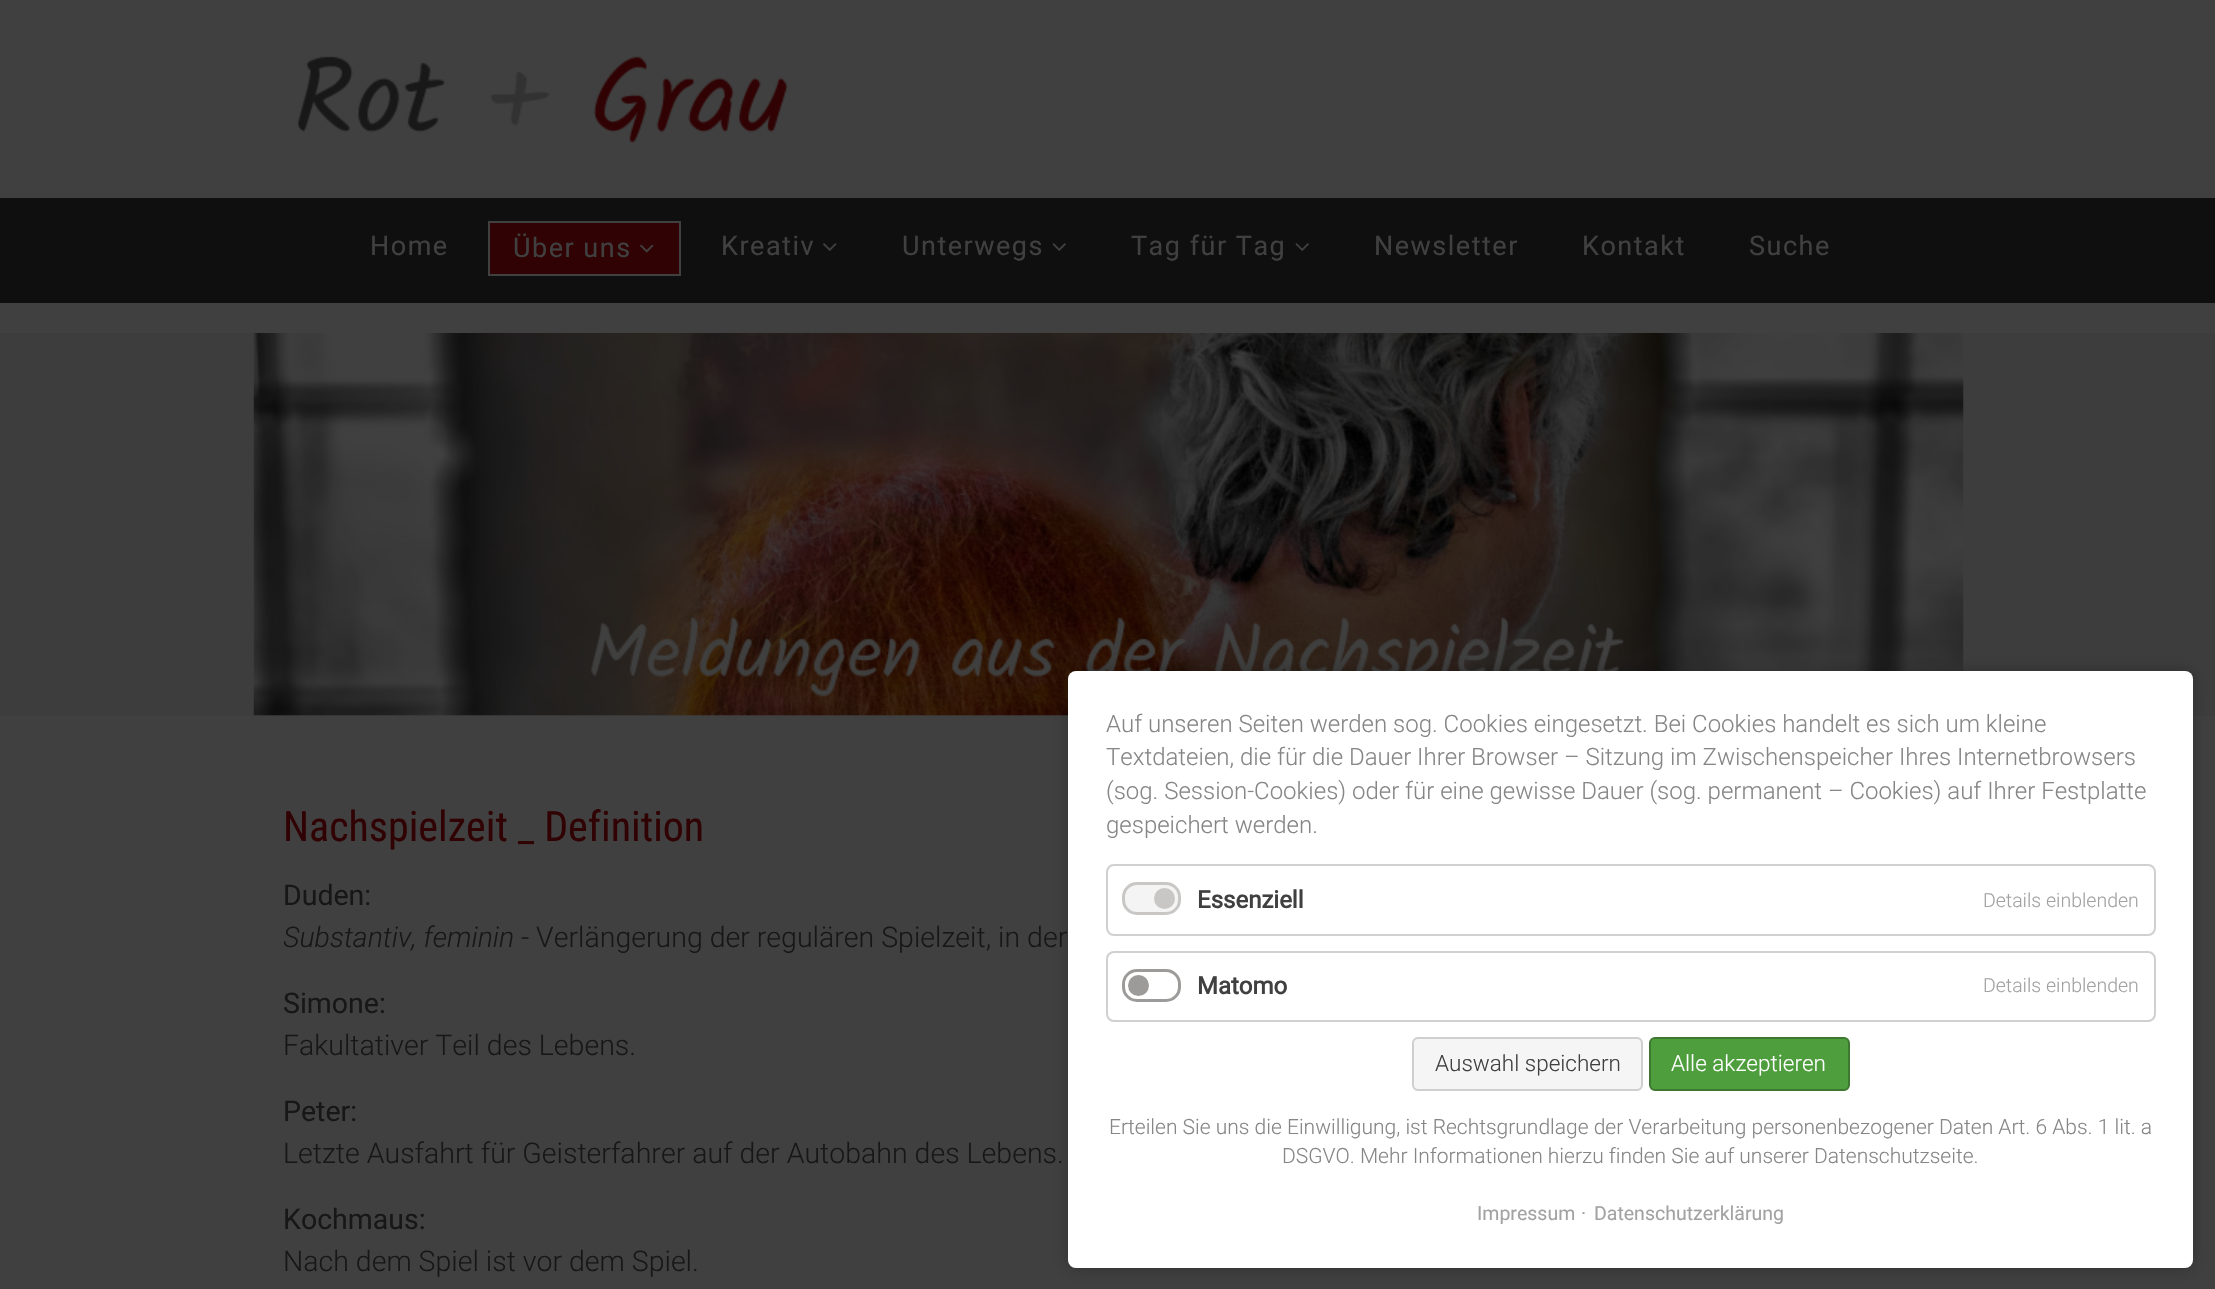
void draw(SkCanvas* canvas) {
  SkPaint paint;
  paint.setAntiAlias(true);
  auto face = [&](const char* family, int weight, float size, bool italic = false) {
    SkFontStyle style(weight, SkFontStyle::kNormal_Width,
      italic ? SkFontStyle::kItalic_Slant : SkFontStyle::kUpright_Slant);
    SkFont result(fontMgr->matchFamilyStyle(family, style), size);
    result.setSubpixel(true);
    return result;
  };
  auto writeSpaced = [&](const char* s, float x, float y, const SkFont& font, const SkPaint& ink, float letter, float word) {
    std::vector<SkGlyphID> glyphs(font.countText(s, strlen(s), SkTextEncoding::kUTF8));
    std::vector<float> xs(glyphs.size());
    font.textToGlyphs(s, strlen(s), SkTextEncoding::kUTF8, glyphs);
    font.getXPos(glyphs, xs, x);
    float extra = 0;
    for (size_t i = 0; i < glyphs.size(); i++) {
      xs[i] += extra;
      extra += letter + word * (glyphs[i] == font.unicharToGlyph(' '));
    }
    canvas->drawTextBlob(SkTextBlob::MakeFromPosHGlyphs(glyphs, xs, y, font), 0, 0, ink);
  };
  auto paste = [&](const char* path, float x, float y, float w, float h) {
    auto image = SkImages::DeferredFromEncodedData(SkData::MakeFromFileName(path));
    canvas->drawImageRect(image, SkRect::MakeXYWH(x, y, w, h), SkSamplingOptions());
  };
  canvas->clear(0xff404040);
  paste("img/1.png", 297, 56, 491, 87);
  paint.setColor(0xff0f0f0f);
  canvas->drawRect(SkRect::MakeXYWH(0, 198, 2215, 105), paint);
  paint.setColor(0xff300203);
  canvas->drawRect(SkRect::MakeXYWH(489, 222, 191, 53), paint);
  paint.setStroke(true);
  paint.setStrokeWidth(2);
  paint.setColor(0xff404040);
  canvas->drawRect(SkRect::MakeXYWH(489, 222, 191, 53), paint);
  paste("img/2.png", 640, 244, 14, 9);
  paste("img/3.png", 823, 243, 14, 8);
  paste("img/4.png", 1052, 243, 14, 8);
  paste("img/4.png", 1295, 243, 14, 8);
  paint.setStroke(false);
  paint.setColor(0xff3d3d3d);
  canvas->drawRect(SkRect::MakeXYWH(0, 333, 2215, 383), paint);
  paste("img/5.png", 253, 333, 1711, 383);
  paint.setColor(0x40000000);
  paint.setMaskFilter(SkMaskFilter::MakeBlur(kNormal_SkBlurStyle, 7.5f));
  canvas->drawRoundRect(SkRect::MakeXYWH(1068, 671, 1125, 597), 8, 8, paint);
  paint.setMaskFilter(nullptr);
  paint.setColor(0xffffffff);
  canvas->drawRoundRect(SkRect::MakeXYWH(1068, 671, 1125, 597), 8, 8, paint);
  paint.setStroke(true);
  paint.setColor(0xffd0d0d0);
  canvas->drawRoundRect(SkRect::MakeXYWH(1107, 865, 1048, 70), 7, 7, paint);
  paint.setStroke(false);
  paint.setColor(0xfff4f4f4);
  canvas->drawRoundRect(SkRect::MakeXYWH(1123.5f, 883.5f, 56, 30), 13.5f, 13.5f, paint);
  paint.setStroke(true);
  paint.setStrokeWidth(3);
  paint.setColor(0xffc8c7c5);
  canvas->drawRoundRect(SkRect::MakeXYWH(1123.5f, 883.5f, 56, 30), 13.5f, 13.5f, paint);
  paint.setStroke(false);
  canvas->drawCircle(1164.5f, 898.5f, 10.5f, paint);
  paint.setStroke(true);
  paint.setStrokeWidth(2);
  paint.setColor(0xffd0d0d0);
  canvas->drawRoundRect(SkRect::MakeXYWH(1107, 952, 1048, 69), 7, 7, paint);
  paint.setStrokeWidth(3);
  paint.setColor(0xff9c9b99);
  canvas->drawRoundRect(SkRect::MakeXYWH(1123.5f, 970.5f, 56, 30), 13.5f, 13.5f, paint);
  paint.setStroke(false);
  canvas->drawCircle(1138.5f, 985.5f, 10.5f, paint);
  paint.setColor(0xfff5f5f5);
  canvas->drawRoundRect(SkRect::MakeXYWH(1413, 1038, 229, 52), 5, 5, paint);
  paint.setStroke(true);
  paint.setStrokeWidth(2);
  paint.setColor(0xffcfcfcf);
  canvas->drawRoundRect(SkRect::MakeXYWH(1413, 1038, 229, 52), 5, 5, paint);
  paint.setStroke(false);
  paint.setColor(0xff4e9e3e);
  canvas->drawRoundRect(SkRect::MakeXYWH(1650, 1038, 199, 52), 5, 5, paint);
  paint.setStroke(true);
  paint.setColor(0xff3e7830);
  canvas->drawRoundRect(SkRect::MakeXYWH(1650, 1038, 199, 52), 5, 5, paint);
  auto f0 = face("Roboto", 400, 27);
  paint.setStroke(false);
  paint.setColor(0xff404040);
  {
    const struct { const char* s; float x, y; } items[] = {
      {"Home", 370, 255},
      {"Über uns", 513, 257},
      {"Kreativ", 721, 255},
      {"Unterwegs", 902, 255},
      {"Tag für Tag", 1131, 255},
      {"Newsletter", 1374, 255},
      {"Kontakt", 1582, 255},
      {"Suche", 1749, 255},
    };
    for (auto [s, x, y] : items) {
      writeSpaced(s, x, y, f0, paint, 1.5f, 0);
    }
  }
  auto f1 = face("Roboto Condensed", 400, 42);
  paint.setColor(0xff300203);
  canvas->drawString("Nachspielzeit _ Definition", 283, 841, f1, paint);
  auto f2 = face("Roboto", 400, 28.5f);
  paint.setColor(0xff171717);
  canvas->drawString("Duden:", 283, 905, f2, paint);
  canvas->save();
  canvas->clipRect(SkRect::MakeXYWH(284, 783, 1650, 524));
  auto f3 = face("Roboto", 300, 28.5f, true);
  canvas->drawString("Substantiv, feminin", 283, 947, f3, paint);
  canvas->restore();
  auto f4 = face("Roboto", 300, 28.5f);
  canvas->drawString("- Verlängerung der regulären Spielzeit, in der", 521, 947, f4, paint);
  canvas->drawString("Simone:", 283, 1013, f2, paint);
  canvas->drawString("Fakultativer Teil des Lebens.", 283, 1055, f4, paint);
  canvas->drawString("Peter:", 283, 1121, f2, paint);
  canvas->drawString("Letzte Ausfahrt für Geisterfahrer auf der Autobahn des Lebens.", 283, 1163, f4, paint);
  canvas->drawString("Kochmaus:", 283, 1229, f2, paint);
  canvas->drawString("Nach dem Spiel ist vor dem Spiel.", 283, 1271, f4, paint);
  auto f5 = face("Roboto", 300, 24);
  paint.setColor(0xff868686);
  {
    const struct { const char* s; float x, y; } items[] = {
      {"Auf unseren Seiten werden sog. Cookies eingesetzt. Bei Cookies handelt es sich um kleine", 1106, 732},
      {"Textdateien, die für die Dauer Ihrer Browser – Sitzung im Zwischenspeicher Ihres Internetbrowsers", 1106, 765},
      {"(sog. Session-Cookies) oder für eine gewisse Dauer (sog. permanent – Cookies) auf Ihrer Festplatte", 1106, 799},
      {"gespeichert werden.", 1106, 833},
    };
    for (auto [s, x, y] : items) {
      canvas->drawString(s, x, y, f5, paint);
    }
  }
  auto f6 = face("Roboto", 700, 24);
  paint.setColor(0xff404040);
  canvas->drawString("Essenziell", 1197, 908, f6, paint);
  auto f7 = face("Roboto", 300, 19.5f);
  paint.setColor(0xffa2a2a2);
  canvas->drawString("Details einblenden", 1983, 907, f7, paint);
  paint.setColor(0xff404040);
  canvas->drawString("Matomo", 1197, 994, f6, paint);
  paint.setColor(0xffa2a2a2);
  canvas->drawString("Details einblenden", 1983, 992, f7, paint);
  auto f8 = face("Roboto", 300, 22.5f);
  paint.setColor(0xff404040);
  canvas->drawString("Auswahl speichern", 1435, 1071, f8, paint);
  paint.setColor(0xffffffff);
  canvas->drawString("Alle akzeptieren", 1671, 1071, f8, paint);
  auto f9 = face("Roboto", 300, 21);
  paint.setColor(0xff868686);
  canvas->drawString("Erteilen Sie uns die Einwilligung, ist Rechtsgrundlage der Verarbeitung personenbezogener Daten Art. 6 Abs. 1 lit. a", 1109, 1134, f9, paint);
  canvas->drawString("DSGVO. Mehr Informationen hierzu finden Sie auf unserer Datenschutzseite.", 1282, 1163, f9, paint);
  auto f10 = face("Roboto", 400, 19.5f);
  paint.setColor(0xffa2a2a2);
  {
    const struct { const char* s; float x, y; } items[] = {
      {"Impressum", 1477, 1220},
      {"·", 1581, 1220},
      {"Datenschutzerklärung", 1594, 1220},
    };
    for (auto [s, x, y] : items) {
      canvas->drawString(s, x, y, f10, paint);
    }
  }
}
